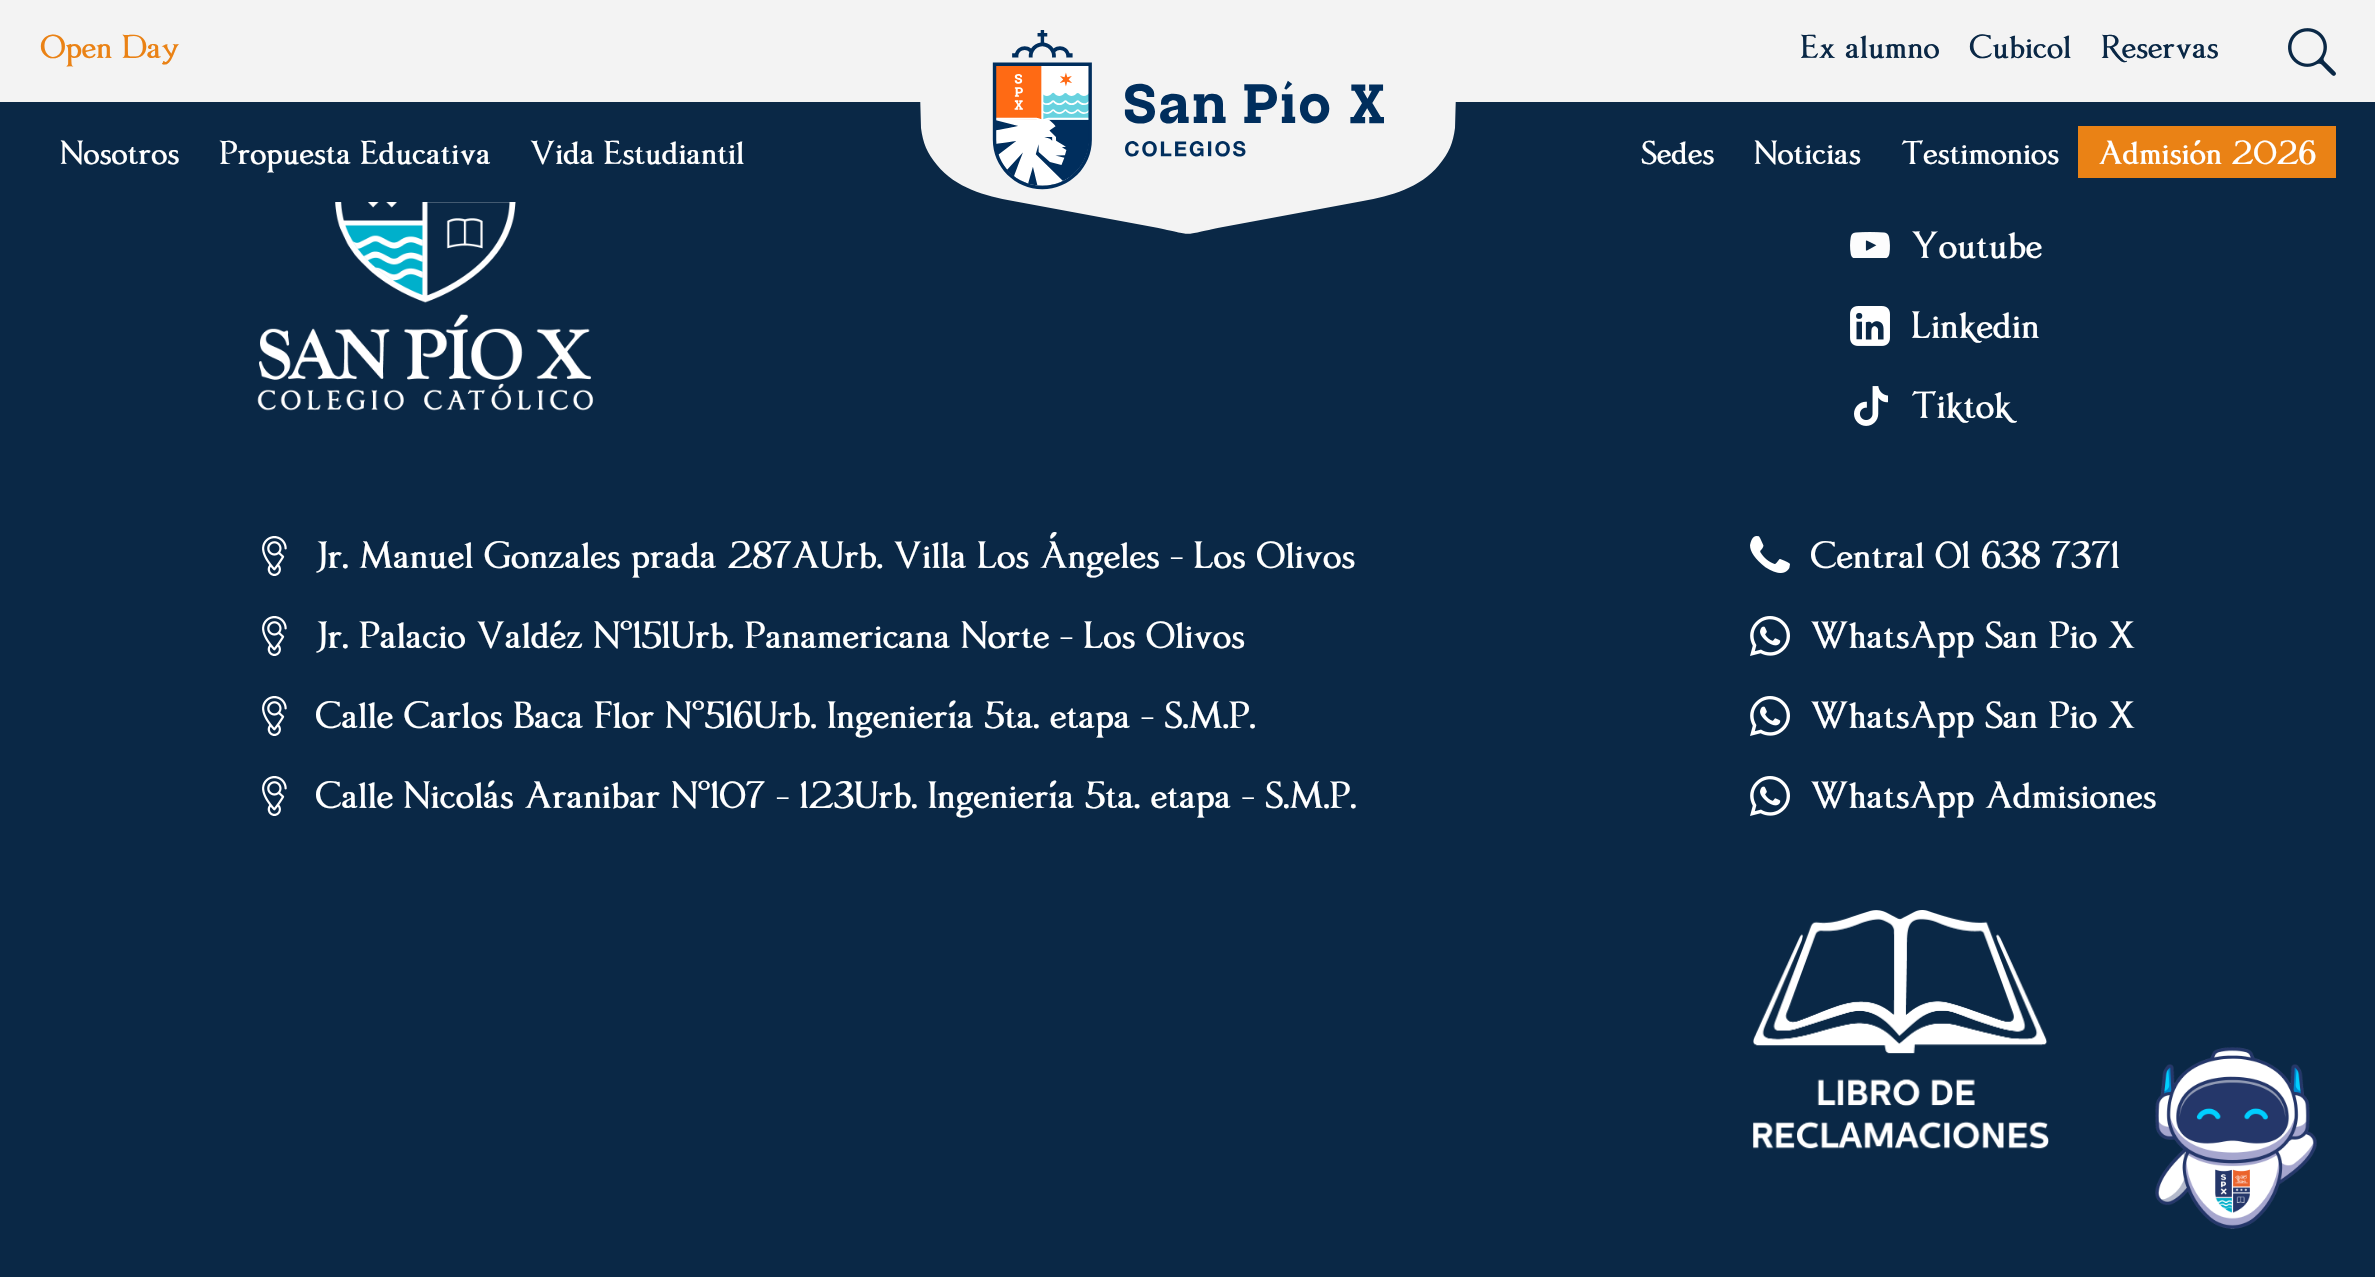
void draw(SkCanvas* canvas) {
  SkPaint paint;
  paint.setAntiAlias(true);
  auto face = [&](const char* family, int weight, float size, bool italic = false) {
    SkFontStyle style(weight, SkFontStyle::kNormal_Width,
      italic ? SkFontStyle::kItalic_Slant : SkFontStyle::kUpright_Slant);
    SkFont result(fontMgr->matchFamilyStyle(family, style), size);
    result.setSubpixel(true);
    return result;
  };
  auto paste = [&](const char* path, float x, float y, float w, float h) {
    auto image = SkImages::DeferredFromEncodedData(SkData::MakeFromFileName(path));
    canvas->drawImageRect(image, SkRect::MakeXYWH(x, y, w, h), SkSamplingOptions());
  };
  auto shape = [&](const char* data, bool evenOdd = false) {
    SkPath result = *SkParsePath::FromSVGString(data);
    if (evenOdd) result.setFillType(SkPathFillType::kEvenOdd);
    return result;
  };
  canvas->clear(0xff0a2846);
  paint.setColor(0xfff3f3f3);
  canvas->drawRect(SkRect::MakeXYWH(0, 0, 2375, 102), paint);
  canvas->drawPath(shape("M1229 20H918L921 128C923 143 927 153 937 165C956 188 985 196 1013 201L1153 227C1198 236 1178 236 1223 227L1363 201C1391 196 1420 188 1439 165C1449 153 1453 143 1455 128L1458 20Z"), paint);
  paste("img/1.png", 992, 30, 392, 160);
  paste("img/2.png", 2288, 28, 48, 48);
  paint.setColor(0xffea8215);
  canvas->drawRect(SkRect::MakeXYWH(2078, 126, 258, 52), paint);
  paste("img/3.png", 257, 202, 337, 209);
  paste("img/4.png", 1850, 232, 40, 26);
  paste("img/5.png", 1850, 306, 40, 40);
  paste("img/6.png", 1854, 386, 34, 40);
  paste("img/7.png", 262, 536, 25, 40);
  paste("img/7.png", 262, 616, 25, 40);
  paste("img/7.png", 262, 696, 25, 40);
  paste("img/7.png", 262, 776, 25, 40);
  paste("img/8.png", 1750, 536, 40, 37);
  paste("img/9.png", 1750, 616, 40, 40);
  paste("img/9.png", 1750, 696, 40, 40);
  paste("img/9.png", 1750, 776, 40, 40);
  paste("img/10.png", 1753, 910, 296, 239);
  paste("img/11.png", 2155, 1047, 162, 182);
  auto f0 = face("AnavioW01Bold", 700, 28);
  canvas->drawString("Open Day", 40, 58, f0, paint);
  paint.setColor(0xff0a2846);
  {
    const struct { const char* s; float x, y; } items[] = {
      {"Ex alumno", 1800, 58},
      {"Cubicol", 1969, 58},
      {"Reservas", 2101, 58},
    };
    for (auto [s, x, y] : items) {
      canvas->drawString(s, x, y, f0, paint);
    }
  }
  paint.setColor(0xffffffff);
  {
    const struct { const char* s; float x, y; } items[] = {
      {"Nosotros", 60, 164},
      {"Propuesta Educativa", 219, 164},
      {"Vida Estudiantil", 530, 164},
      {"Sedes", 1641, 164},
      {"Noticias", 1754, 164},
      {"Testimonios", 1901, 164},
      {"Admisión 2026", 2098, 164},
    };
    for (auto [s, x, y] : items) {
      canvas->drawString(s, x, y, f0, paint);
    }
  }
  auto f1 = face("AnavioW01Bold", 700, 32);
  {
    const struct { const char* s; float x, y; } items[] = {
      {"Youtube", 1911, 258},
      {"Linkedin", 1911, 338},
      {"Tiktok", 1911, 418},
      {"Jr. Manuel Gonzales prada 287AUrb. Villa Los Ángeles - Los Olivos", 315, 568},
      {"Jr. Palacio Valdéz N°151Urb. Panamericana Norte - Los Olivos", 315, 648},
      {"Calle Carlos Baca Flor N°516Urb. Ingeniería 5ta. etapa - S.M.P.", 315, 728},
      {"Calle Nicolás Aranibar N°107 - 123Urb. Ingeniería 5ta. etapa - S.M.P.", 315, 808},
      {"Central 01 638 7371", 1810, 568},
      {"WhatsApp San Pio X", 1810, 648},
      {"WhatsApp San Pio X", 1810, 728},
      {"WhatsApp Admisiones", 1810, 808},
    };
    for (auto [s, x, y] : items) {
      canvas->drawString(s, x, y, f1, paint);
    }
  }
}
